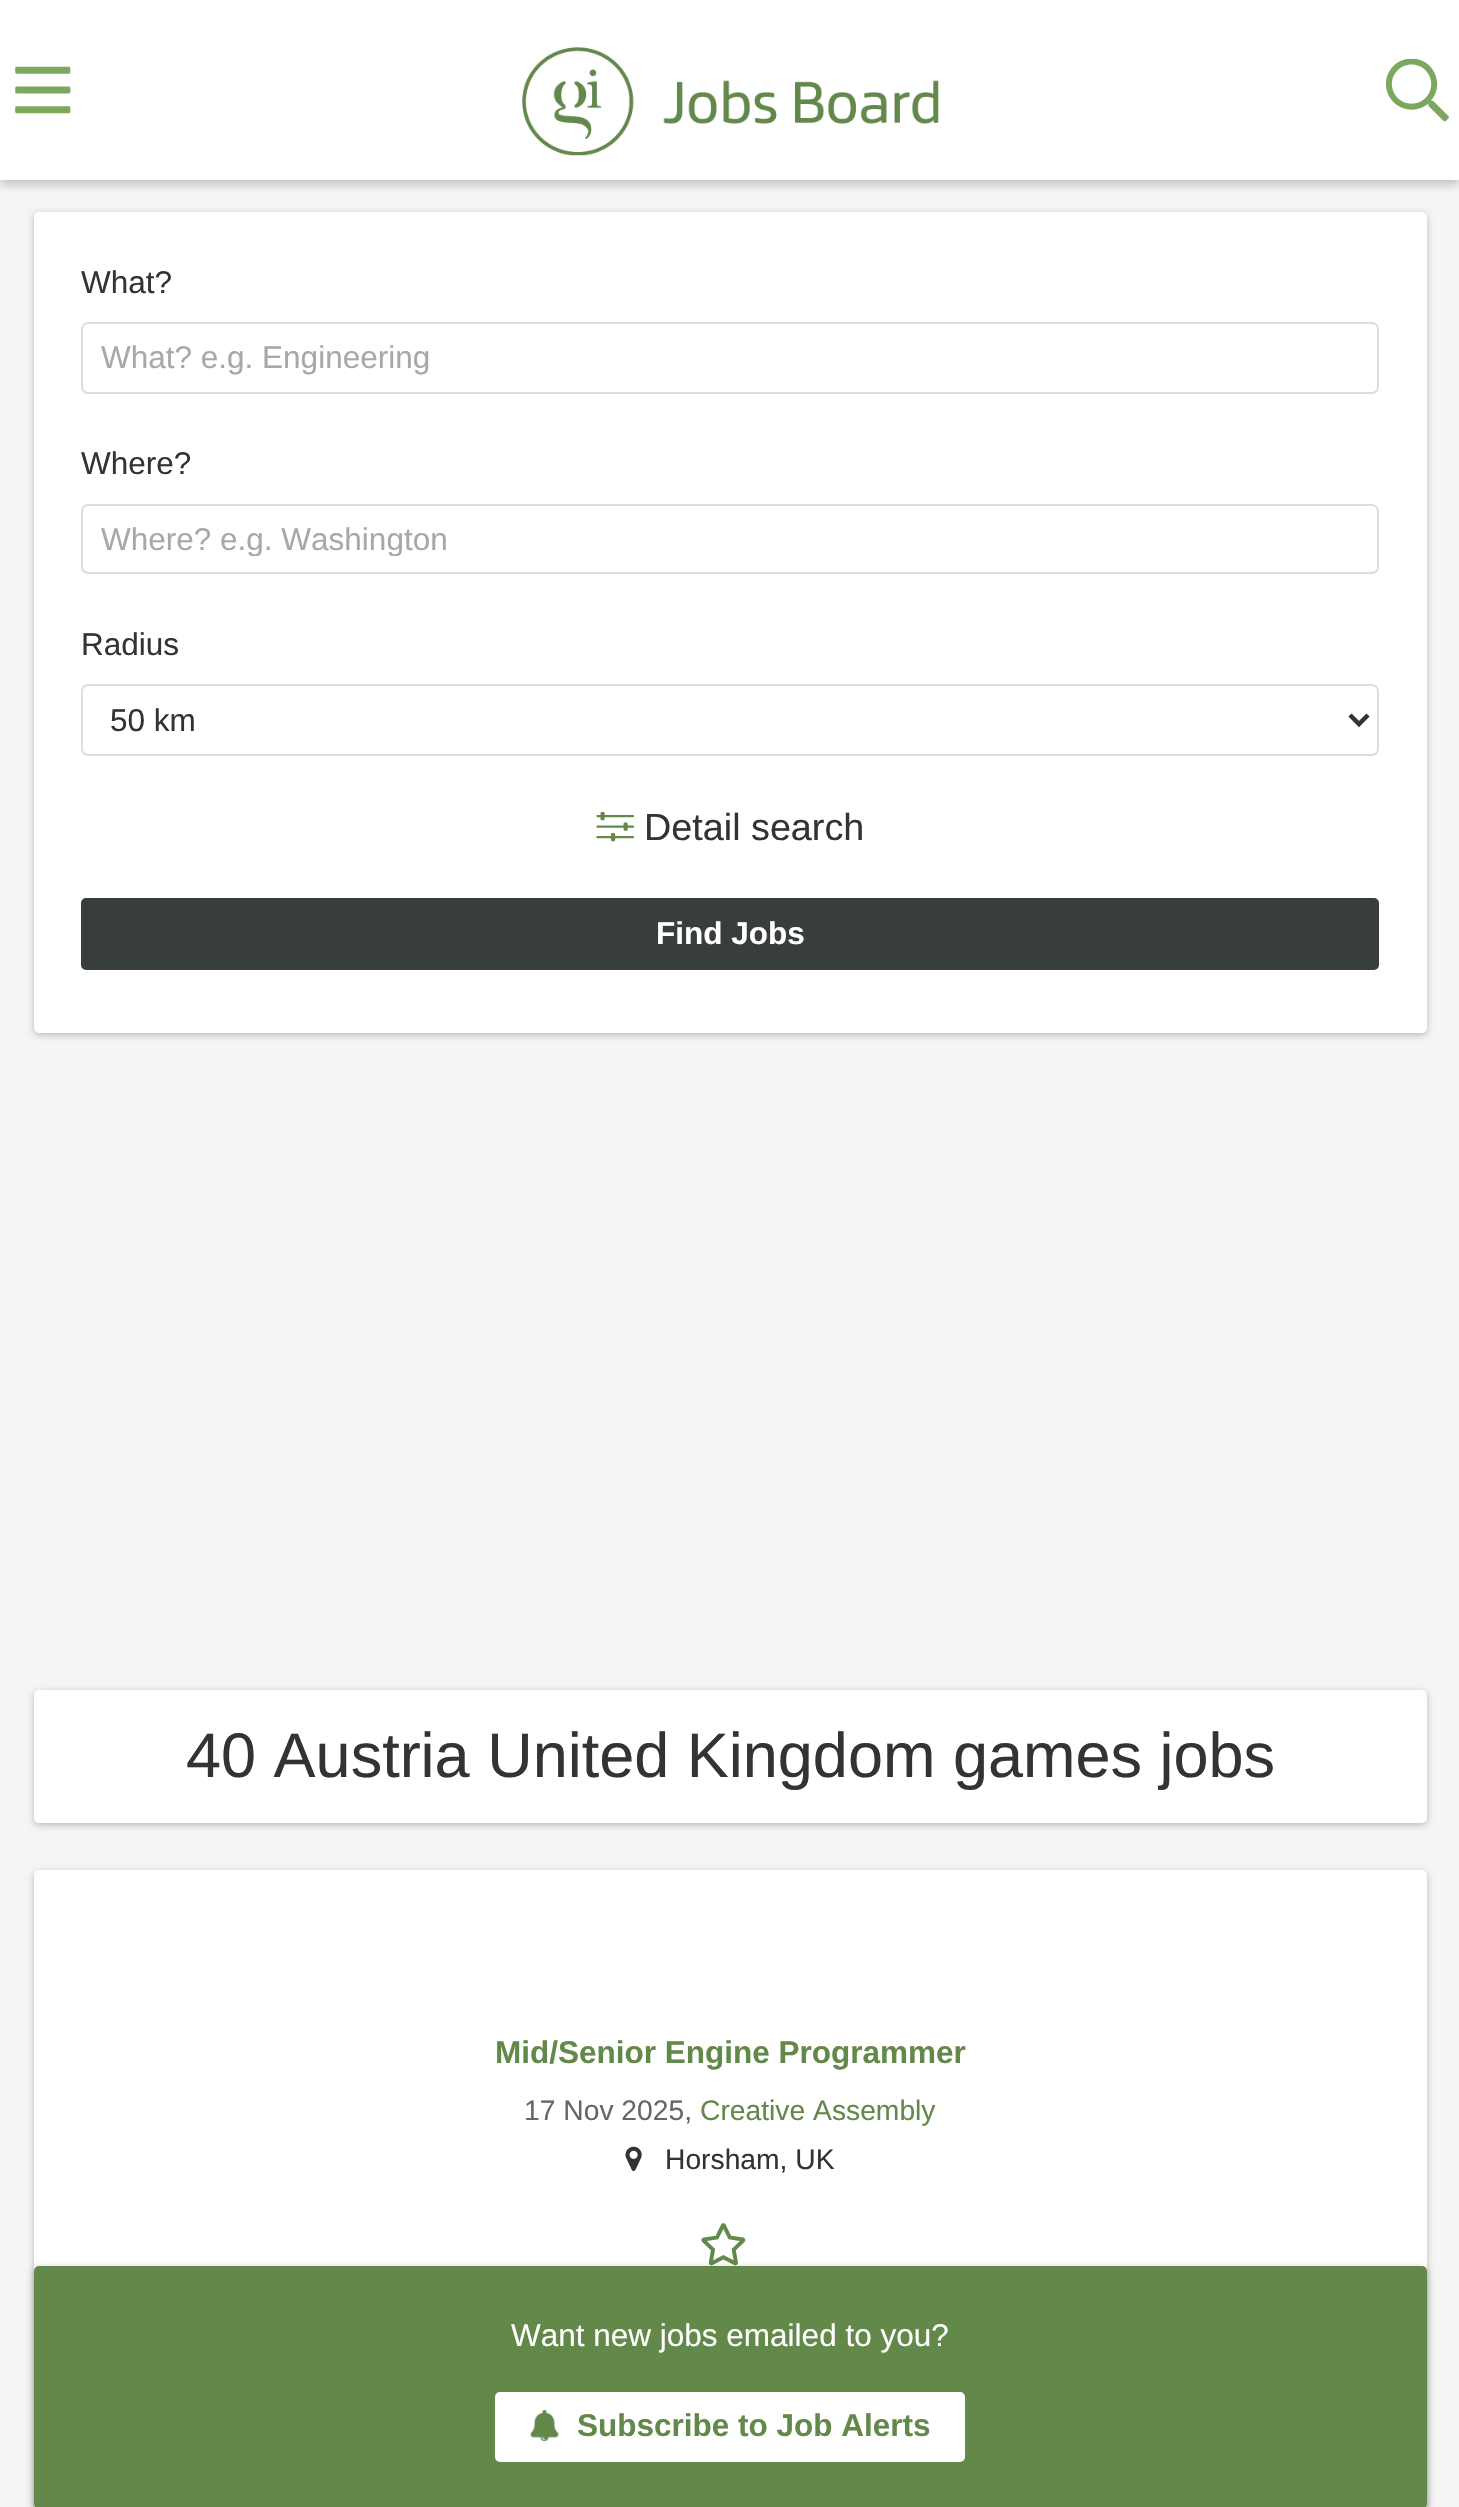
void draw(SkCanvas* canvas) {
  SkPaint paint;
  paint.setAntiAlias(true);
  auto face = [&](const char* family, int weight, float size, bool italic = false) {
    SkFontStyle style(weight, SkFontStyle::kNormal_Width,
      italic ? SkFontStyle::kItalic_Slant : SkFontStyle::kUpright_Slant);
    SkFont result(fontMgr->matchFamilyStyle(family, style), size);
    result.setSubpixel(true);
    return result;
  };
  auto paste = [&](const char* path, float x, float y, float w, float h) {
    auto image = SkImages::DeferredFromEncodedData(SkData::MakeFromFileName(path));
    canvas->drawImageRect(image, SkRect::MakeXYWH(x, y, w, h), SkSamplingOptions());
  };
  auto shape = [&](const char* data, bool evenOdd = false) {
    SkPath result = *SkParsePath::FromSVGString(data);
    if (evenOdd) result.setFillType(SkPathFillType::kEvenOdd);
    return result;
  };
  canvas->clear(0xfff5f5f5);
  paint.setColor(0x80919191);
  paint.setMaskFilter(SkMaskFilter::MakeBlur(kNormal_SkBlurStyle, 4.5f));
  canvas->drawRect(SkRect::MakeXYWH(0, 5, 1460, 180), paint);
  paint.setMaskFilter(nullptr);
  paint.setColor(0xffffffff);
  canvas->drawRect(SkRect::MakeXYWH(0, 0, 1459, 180), paint);
  paste("img/1.png", 15, 66, 56, 48);
  paste("img/2.png", 522, 47, 417, 109);
  paste("img/3.png", 1386, 58, 63, 64);
  paint.setColor(0x40000000);
  paint.setMaskFilter(SkMaskFilter::MakeBlur(kNormal_SkBlurStyle, 3.5f));
  canvas->drawRoundRect(SkRect::MakeXYWH(34, 214, 1393, 821), 5, 5, paint);
  paint.setMaskFilter(nullptr);
  paint.setColor(0xffffffff);
  canvas->drawRoundRect(SkRect::MakeXYWH(34, 212, 1393, 821), 5, 5, paint);
  paint.setStroke(true);
  paint.setStrokeWidth(2);
  paint.setColor(0xffdddddd);
  canvas->drawRoundRect(SkRect::MakeXYWH(82, 323, 1296, 70), 6, 6, paint);
  canvas->drawRoundRect(SkRect::MakeXYWH(82, 505, 1296, 68), 6, 6, paint);
  canvas->drawRoundRect(SkRect::MakeXYWH(82, 685, 1296, 70), 6, 6, paint);
  paint.setStrokeWidth(4.5f);
  paint.setColor(0xff333333);
  canvas->drawPath(shape("M1350 715L1359 724L1368 715"), paint);
  paste("img/4.png", 596, 812, 38, 30);
  paint.setStroke(false);
  paint.setColor(0xff383e3a);
  canvas->drawRoundRect(SkRect::MakeXYWH(82, 899, 1296, 70), 4, 4, paint);
  paint.setStroke(true);
  paint.setStrokeWidth(2);
  canvas->drawRoundRect(SkRect::MakeXYWH(82, 899, 1296, 70), 4, 4, paint);
  paint.setStroke(false);
  paint.setColor(0x40000000);
  paint.setMaskFilter(SkMaskFilter::MakeBlur(kNormal_SkBlurStyle, 3.5f));
  canvas->drawRoundRect(SkRect::MakeXYWH(34, 1692, 1393, 133), 5, 5, paint);
  paint.setMaskFilter(nullptr);
  paint.setColor(0xffffffff);
  canvas->drawRoundRect(SkRect::MakeXYWH(34, 1690, 1393, 133), 5, 5, paint);
  paint.setColor(0x40000000);
  paint.setMaskFilter(SkMaskFilter::MakeBlur(kNormal_SkBlurStyle, 3.5f));
  canvas->drawRoundRect(SkRect::MakeXYWH(34, 1872, 1393, 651), 5, 5, paint);
  paint.setMaskFilter(nullptr);
  paint.setColor(0xffffffff);
  canvas->drawRoundRect(SkRect::MakeXYWH(34, 1870, 1393, 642), 5, 5, paint);
  paste("img/5.png", 625, 2146, 17, 25);
  paste("img/6.png", 701, 2223, 45, 43);
  paint.setColor(0x40000000);
  paint.setMaskFilter(SkMaskFilter::MakeBlur(kNormal_SkBlurStyle, 3.5f));
  canvas->drawRoundRect(SkRect::MakeXYWH(34, 2268, 1393, 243), 5, 5, paint);
  paint.setMaskFilter(nullptr);
  paint.setColor(0xff63894a);
  canvas->drawRoundRect(SkRect::MakeXYWH(34, 2266, 1393, 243), 5, 5, paint);
  paint.setColor(0xffffffff);
  canvas->drawRoundRect(SkRect::MakeXYWH(496, 2393, 468, 68), 4, 4, paint);
  paint.setStroke(true);
  canvas->drawRoundRect(SkRect::MakeXYWH(496, 2393, 468, 68), 4, 4, paint);
  paste("img/7.png", 530, 2410, 29, 32);
  auto f0 = face("Liberation Sans", 400, 31.5f);
  paint.setStroke(false);
  paint.setColor(0xff333333);
  canvas->drawString("What?", 81, 293, f0, paint);
  paint.setColor(0xffa8a8a8);
  canvas->drawString("What? e.g. Engineering", 101, 368, f0, paint);
  paint.setColor(0xff333333);
  canvas->drawString("Where?", 81, 474, f0, paint);
  canvas->save();
  canvas->clipRect(SkRect::MakeXYWH(101, 520, 1258, 36));
  paint.setColor(0xffa8a8a8);
  canvas->drawString("Where? e.g. Washington", 101, 550, f0, paint);
  canvas->restore();
  paint.setColor(0xff333333);
  canvas->drawString("Radius", 81, 655, f0, paint);
  canvas->drawString("50 km", 110, 731, f0, paint);
  auto f1 = face("Liberation Sans", 400, 37.75f);
  canvas->drawString("Detail search", 644, 840, f1, paint);
  auto f2 = face("Liberation Sans", 700, 31.5f);
  paint.setColor(0xffffffff);
  canvas->drawString("Find Jobs", 656, 944, f2, paint);
  auto f3 = face("Liberation Sans", 400, 63);
  paint.setColor(0xff333333);
  canvas->drawString("40 Austria United Kingdom games jobs", 186, 1777, f3, paint);
  paint.setColor(0xff63894a);
  canvas->drawString("Mid/Senior Engine Programmer", 495, 2063, f2, paint);
  auto f4 = face("Liberation Sans", 400, 28.25f);
  paint.setColor(0xff666666);
  canvas->drawString("17 Nov 2025,", 524, 2120, f4, paint);
  paint.setColor(0xff63894a);
  canvas->drawString("Creative Assembly", 700, 2120, f4, paint);
  paint.setColor(0xff333333);
  canvas->drawString("Horsham, UK", 665, 2169, f4, paint);
  paint.setColor(0xffffffff);
  canvas->drawString("Want new jobs emailed to you?", 511, 2346, f0, paint);
  paint.setColor(0xff63894a);
  canvas->drawString("Subscribe to Job Alerts", 577, 2436, f2, paint);
}
